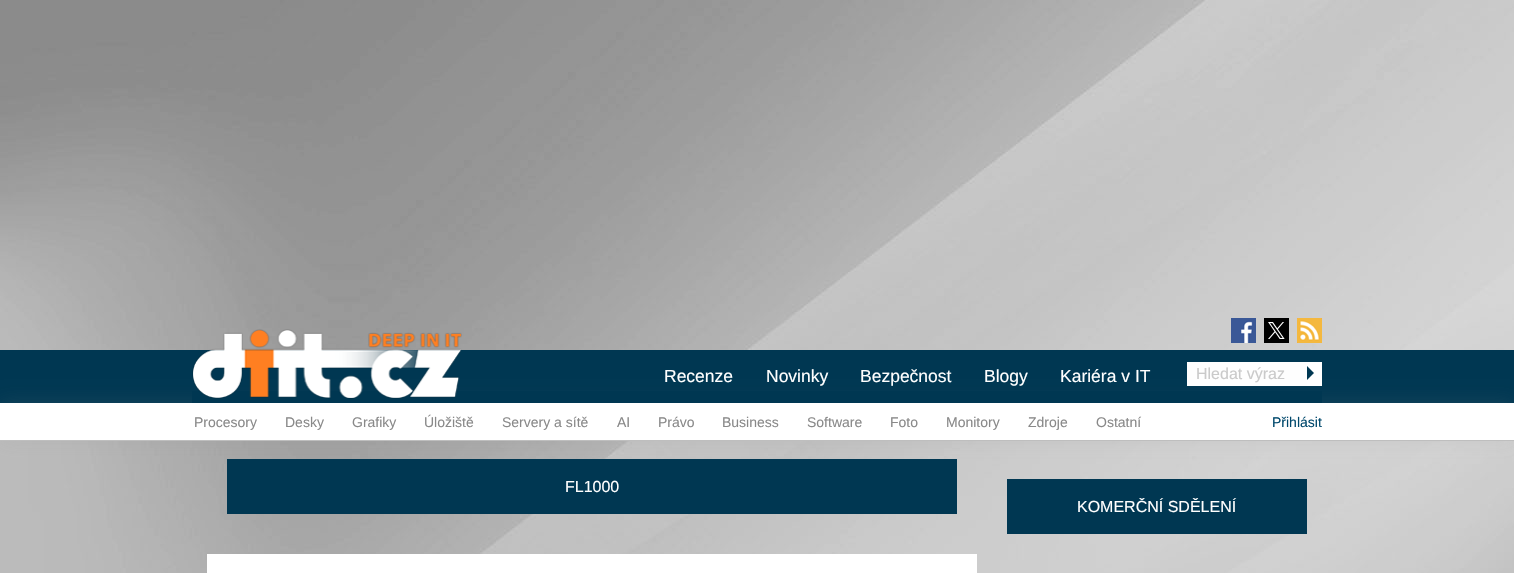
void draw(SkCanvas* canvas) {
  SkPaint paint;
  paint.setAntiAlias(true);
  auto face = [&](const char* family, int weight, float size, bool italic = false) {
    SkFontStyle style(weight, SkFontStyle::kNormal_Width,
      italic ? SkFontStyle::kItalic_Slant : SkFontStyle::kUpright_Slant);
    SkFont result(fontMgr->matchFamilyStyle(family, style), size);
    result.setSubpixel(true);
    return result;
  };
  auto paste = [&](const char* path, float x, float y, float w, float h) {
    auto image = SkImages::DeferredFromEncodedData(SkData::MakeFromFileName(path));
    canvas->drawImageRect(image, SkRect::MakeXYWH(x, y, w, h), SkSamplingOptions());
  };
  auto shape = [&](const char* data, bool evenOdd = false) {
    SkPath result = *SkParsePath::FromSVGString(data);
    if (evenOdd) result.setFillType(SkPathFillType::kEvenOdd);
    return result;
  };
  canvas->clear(0xffffffff);
  paste("img/1.png", 0, 0, 1514, 573);
  paint.setColor(0xff003752);
  canvas->drawRect(SkRect::MakeXYWH(0, 350, 1514, 53), paint);
  paint.setColor(0x26969696);
  paint.setMaskFilter(SkMaskFilter::MakeBlur(kNormal_SkBlurStyle, 10));
  canvas->drawRect(SkRect::MakeXYWH(0, 403, 1514, 38), paint);
  paint.setMaskFilter(nullptr);
  paint.setColor(0xff003752);
  canvas->drawRect(SkRect::MakeXYWH(192, 391, 1130, 12), paint);
  paste("img/2.png", 192, 329, 270, 70);
  paste("img/3.png", 1231, 318, 25, 25);
  paint.setColor(0xff000000);
  canvas->drawRect(SkRect::MakeXYWH(1264, 318, 25, 25), paint);
  paste("img/4.png", 1268, 322, 17, 17);
  paste("img/5.png", 1297, 318, 25, 25);
  paint.setColor(0xfffefefe);
  canvas->drawRect(SkRect::MakeXYWH(1187, 362, 120, 24), paint);
  paint.setColor(0xffffffff);
  canvas->drawRect(SkRect::MakeXYWH(1307, 362, 15, 24), paint);
  paint.setColor(0xff003752);
  canvas->drawPath(shape("M1307 380V366L1314 373Z"), paint);
  {
    const struct { float x, y, w, h; SkColor color; } items[] = {
      {0, 403, 1514, 37, 0xffffffff},
      {0, 440, 1514, 1, 0xffbebebe},
      {227, 459, 730, 55, 0xff003752},
      {207, 554, 770, 19, 0xffffffff},
      {1007, 479, 300, 55, 0xff003752},
    };
    for (auto [x, y, w, h, color] : items) {
      paint.setColor(color);
      canvas->drawRect(SkRect::MakeXYWH(x, y, w, h), paint);
    }
  }
  auto f0 = face("Liberation Sans", 400, 17.5f);
  paint.setColor(0xffffffff);
  {
    const struct { const char* s; float x, y; } items[] = {
      {"Recenze", 664, 382},
      {"Novinky", 766, 382},
      {"Bezpečnost", 860, 382},
      {"Blogy", 984, 382},
      {"Kariéra v IT", 1060, 382},
    };
    for (auto [s, x, y] : items) {
      canvas->drawString(s, x, y, f0, paint);
    }
  }
  auto f1 = face("Liberation Sans", 400, 16);
  paint.setColor(0xffcacaca);
  canvas->drawString("Hledat výraz", 1196, 379, f1, paint);
  auto f2 = face("Liberation Sans", 400, 14);
  paint.setColor(0xff898989);
  {
    const struct { const char* s; float x, y; } items[] = {
      {"Procesory", 194, 427},
      {"Desky", 285, 427},
      {"Grafiky", 352, 427},
      {"Úložiště", 424, 427},
      {"Servery a sítě", 502, 427},
      {"AI", 617, 427},
      {"Právo", 658, 427},
      {"Business", 722, 427},
      {"Software", 807, 427},
      {"Foto", 890, 427},
      {"Monitory", 946, 427},
      {"Zdroje", 1028, 427},
      {"Ostatní", 1096, 427},
    };
    for (auto [s, x, y] : items) {
      canvas->drawString(s, x, y, f2, paint);
    }
  }
  paint.setColor(0xff00486c);
  canvas->drawString("Přihlásit", 1272, 427, f2, paint);
  paint.setColor(0xffffffff);
  canvas->drawString("FL1000", 565, 492, f1, paint);
  canvas->drawString("KOMERČNÍ SDĚLENÍ", 1077, 512, f1, paint);
}
